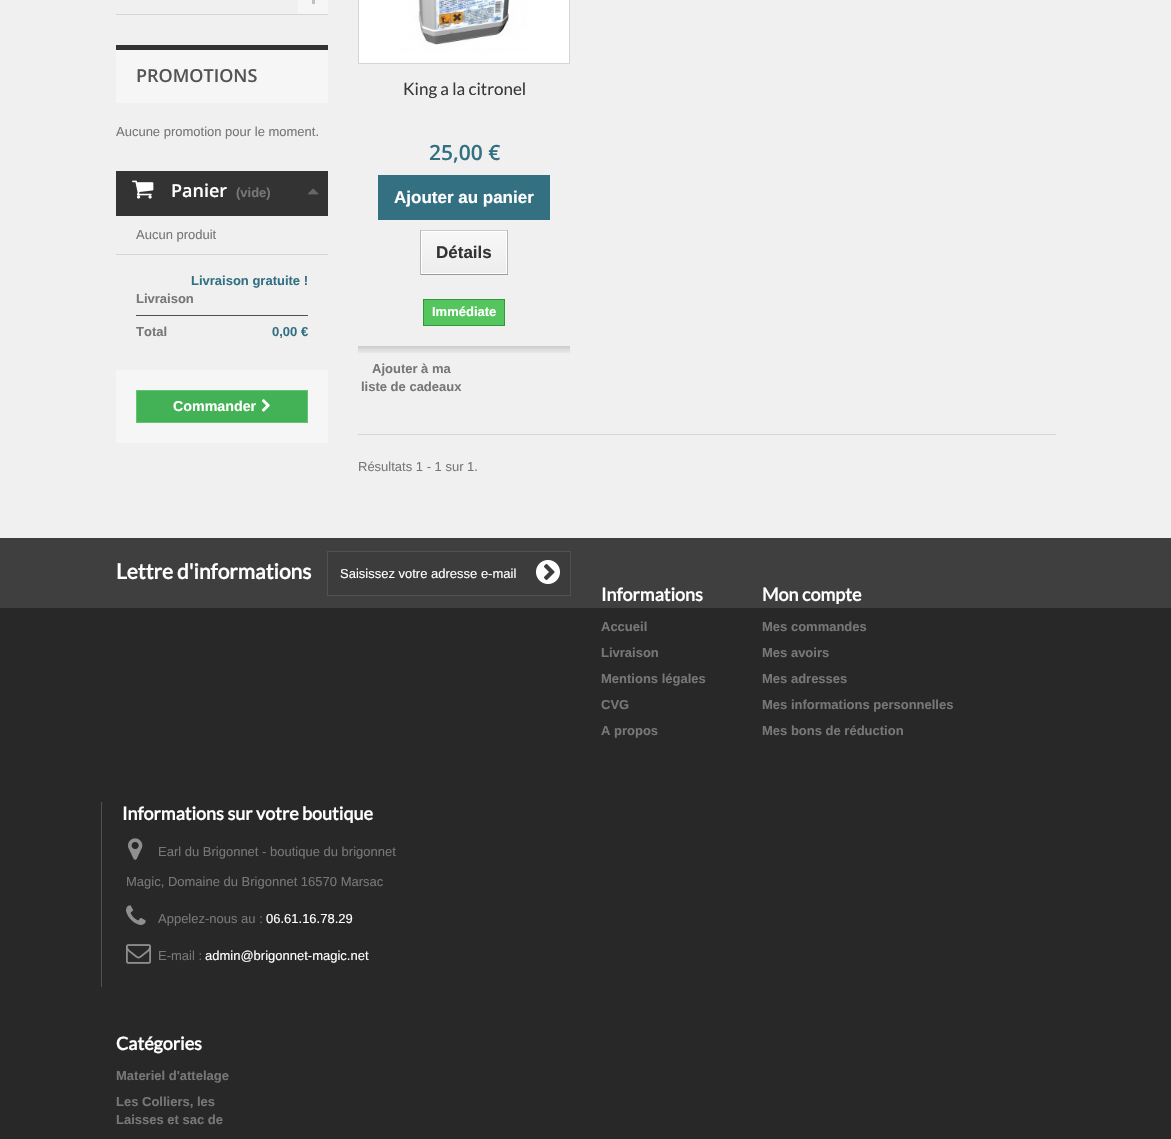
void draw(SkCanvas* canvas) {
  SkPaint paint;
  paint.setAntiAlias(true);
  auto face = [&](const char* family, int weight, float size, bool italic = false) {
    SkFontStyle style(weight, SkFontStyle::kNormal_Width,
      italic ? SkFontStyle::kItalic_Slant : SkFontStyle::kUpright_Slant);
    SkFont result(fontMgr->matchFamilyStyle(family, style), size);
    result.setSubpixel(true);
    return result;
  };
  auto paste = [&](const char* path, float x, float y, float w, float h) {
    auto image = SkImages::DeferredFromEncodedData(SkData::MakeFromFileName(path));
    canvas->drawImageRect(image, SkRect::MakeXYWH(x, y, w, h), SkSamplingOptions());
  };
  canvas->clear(0xff282828);
  {
    const struct { float x, y, w, h; SkColor color; } items[] = {
      {0, 0, 1171, 538, 0xfff0f0f0},
      {298, 0, 30, 14, 0xfff6f6f6},
      {312, 0, 3, 4, 0xffc0c0c0},
      {116, 14, 212, 1, 0xffd6d4d4},
      {116, 50, 212, 53, 0xfff6f6f6},
      {116, 45, 212, 5, 0xff333333},
      {116, 171, 212, 45, 0xff333333},
    };
    for (auto [x, y, w, h, color] : items) {
      paint.setColor(color);
      canvas->drawRect(SkRect::MakeXYWH(x, y, w, h), paint);
    }
  }
  paste("img/1.png", 132, 180, 22, 19);
  paste("img/2.png", 308, 188, 11, 7);
  {
    const struct { float x, y, w, h; SkColor color; } items[] = {
      {116, 254, 212, 1, 0xffd6d4d4},
      {136, 315, 172, 1, 0xff515151},
      {116, 370, 212, 73, 0xfff6f6f6},
    };
    for (auto [x, y, w, h, color] : items) {
      paint.setColor(color);
      canvas->drawRect(SkRect::MakeXYWH(x, y, w, h), paint);
    }
  }
  paint.setColor(0xff43b155);
  canvas->drawRect(SkRect::MakeXYWH(136.5f, 390.5f, 171, 32), paint);
  paint.setStroke(true);
  paint.setStrokeWidth(1);
  paint.setColor(0xff63c473);
  canvas->drawRect(SkRect::MakeXYWH(136.5f, 390.5f, 171, 32), paint);
  paste("img/3.png", 261, 399, 9, 13);
  paint.setStroke(false);
  paint.setColor(0xffffffff);
  canvas->drawRect(SkRect::MakeXYWH(358.5f, -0.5f, 211, 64), paint);
  paint.setStroke(true);
  paint.setColor(0xffd6d4d4);
  canvas->drawRect(SkRect::MakeXYWH(358.5f, -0.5f, 211, 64), paint);
  paste("img/4.png", 368, 0, 192, 54);
  paint.setColor(0xff327082);
  canvas->drawRect(SkRect::MakeXYWH(378.5f, 175.5f, 171, 44), paint);
  paint.setStroke(false);
  {
    const struct { float x, y, w, h; SkColor color; } items[] = {
      {379, 176, 170, 43, 0xff327082},
      {420, 230, 88, 1, 0xffcacaca},
      {507, 230, 1, 45, 0xffb7b7b7},
      {420, 274, 88, 1, 0xff9a9a9a},
      {420, 230, 1, 45, 0xffb7b7b7},
    };
    for (auto [x, y, w, h, color] : items) {
      paint.setColor(color);
      canvas->drawRect(SkRect::MakeXYWH(x, y, w, h), paint);
    }
  }
  {
    const SkColor colors[] = {0xfff7f7f7, 0xffededed};
    const float stops[] = {0, 1};
    const SkPoint ends[] = {{464, 232}, {464, 273}};
    paint.setShader(SkGradientShader::MakeLinear(ends, colors, stops, 2, SkTileMode::kClamp));
    paint.setAlpha(255);
  }
  canvas->drawRect(SkRect::MakeXYWH(422, 232, 84, 41), paint);
  paint.setStroke(true);
  paint.setShader(nullptr);
  paint.setColor(0xffffffff);
  canvas->drawRect(SkRect::MakeXYWH(421.5f, 231.5f, 85, 42), paint);
  paint.setStroke(false);
  paint.setColor(0xff55c65e);
  canvas->drawRect(SkRect::MakeXYWH(423.5f, 299.5f, 81, 26), paint);
  paint.setStroke(true);
  paint.setColor(0xff36943e);
  canvas->drawRect(SkRect::MakeXYWH(423.5f, 299.5f, 81, 26), paint);
  paste("img/5.png", 358, 346, 212, 7);
  paint.setStroke(false);
  paint.setColor(0xffd6d4d4);
  canvas->drawRect(SkRect::MakeXYWH(358, 434, 698, 1), paint);
  paint.setColor(0xff3f3f3f);
  canvas->drawRect(SkRect::MakeXYWH(0, 538, 1171, 70), paint);
  paint.setColor(0xff3c3c3c);
  canvas->drawRect(SkRect::MakeXYWH(327.5f, 551.5f, 243, 44), paint);
  paint.setStroke(true);
  paint.setColor(0xff515151);
  canvas->drawRect(SkRect::MakeXYWH(327.5f, 551.5f, 243, 44), paint);
  paste("img/6.png", 536, 560, 24, 24);
  paint.setStroke(false);
  canvas->drawRect(SkRect::MakeXYWH(101, 802, 1, 185), paint);
  paste("img/7.png", 128, 838, 15, 22);
  paste("img/8.png", 126, 905, 20, 20);
  paste("img/9.png", 126, 944, 25, 20);
  auto f0 = face("Open Sans", 600, 18);
  paint.setColor(0xff555454);
  canvas->drawString("PROMOTIONS", 136, 82, f0, paint);
  auto f1 = face("Liberation Sans", 400, 13);
  paint.setColor(0xff777777);
  canvas->drawString("Aucune promotion pour le moment.", 116, 136, f1, paint);
  paint.setColor(0xffffffff);
  canvas->drawString("Panier", 171, 197, f0, paint);
  auto f2 = face("Liberation Sans", 700, 13);
  paint.setColor(0xff777777);
  canvas->drawString("(vide)", 236, 197, f2, paint);
  canvas->drawString("Aucun produit", 136, 239, f1, paint);
  paint.setColor(0xff327082);
  canvas->drawString("Livraison gratuite !", 191, 285, f2, paint);
  paint.setColor(0xff777777);
  canvas->drawString("Livraison", 136, 303, f2, paint);
  canvas->drawString("Total", 136, 336, f2, paint);
  paint.setColor(0xff327082);
  canvas->drawString("0,00 €", 272, 336, f2, paint);
  auto f3 = face("Liberation Sans", 700, 14.25f);
  paint.setColor(0xffffffff);
  canvas->drawString("Commander", 173, 411, f3, paint);
  auto f4 = face("Lato", 400, 17);
  paint.setColor(0xff3a3939);
  canvas->drawString("King a la citronel", 403, 95, f4, paint);
  auto f5 = face("Open Sans", 600, 21);
  paint.setColor(0xff327082);
  canvas->drawString("25,00 €", 429, 160, f5, paint);
  auto f6 = face("Liberation Sans", 700, 17);
  paint.setColor(0xffffffff);
  canvas->drawString("Ajouter au panier", 394, 203, f6, paint);
  paint.setColor(0xff333333);
  canvas->drawString("Détails", 436, 258, f6, paint);
  paint.setColor(0xffffffff);
  canvas->drawString("Immédiate", 432, 316, f2, paint);
  paint.setColor(0xff777777);
  canvas->drawString("Ajouter à ma", 372, 373, f2, paint);
  canvas->drawString("liste de cadeaux", 361, 391, f2, paint);
  canvas->drawString("Résultats 1 - 1 sur 1.", 358, 471, f1, paint);
  auto f7 = face("Lato", 700, 21);
  paint.setColor(0xffffffff);
  canvas->drawString("Lettre d'informations", 116, 579, f7, paint);
  canvas->drawString("Saisissez votre adresse e-mail", 340, 578, f1, paint);
  auto f8 = face("Lato", 700, 18);
  canvas->drawString("Informations", 601, 601, f8, paint);
  paint.setColor(0xff777777);
  {
    const struct { const char* s; float x, y; } items[] = {
      {"Accueil", 601, 631},
      {"Livraison", 601, 657},
      {"Mentions légales", 601, 683},
      {"CVG", 601, 709},
      {"A propos", 601, 735},
    };
    for (auto [s, x, y] : items) {
      canvas->drawString(s, x, y, f2, paint);
    }
  }
  paint.setColor(0xffffffff);
  canvas->drawString("Mon compte", 762, 601, f8, paint);
  paint.setColor(0xff777777);
  {
    const struct { const char* s; float x, y; } items[] = {
      {"Mes commandes", 762, 631},
      {"Mes avoirs", 762, 657},
      {"Mes adresses", 762, 683},
      {"Mes informations personnelles", 762, 709},
      {"Mes bons de réduction", 762, 735},
    };
    for (auto [s, x, y] : items) {
      canvas->drawString(s, x, y, f2, paint);
    }
  }
  paint.setColor(0xffffffff);
  canvas->drawString("Informations sur votre boutique", 122, 820, f8, paint);
  paint.setColor(0xff777777);
  {
    const struct { const char* s; float x, y; } items[] = {
      {"Earl du Brigonnet - boutique du brigonnet", 158, 856},
      {"Magic, Domaine du Brigonnet 16570 Marsac", 126, 886},
      {"Appelez-nous au :", 158, 923},
    };
    for (auto [s, x, y] : items) {
      canvas->drawString(s, x, y, f1, paint);
    }
  }
  paint.setColor(0xffffffff);
  canvas->drawString("06.61.16.78.29", 266, 923, f1, paint);
  paint.setColor(0xff777777);
  canvas->drawString("E-mail :", 158, 960, f1, paint);
  paint.setColor(0xffffffff);
  canvas->drawString("admin@brigonnet-magic.net", 205, 960, f1, paint);
  canvas->drawString("Catégories", 116, 1050, f8, paint);
  paint.setColor(0xff777777);
  {
    const struct { const char* s; float x, y; } items[] = {
      {"Materiel d'attelage", 116, 1080},
      {"Les Colliers, les", 116, 1106},
      {"Laisses et sac de", 116, 1124},
    };
    for (auto [s, x, y] : items) {
      canvas->drawString(s, x, y, f2, paint);
    }
  }
}
